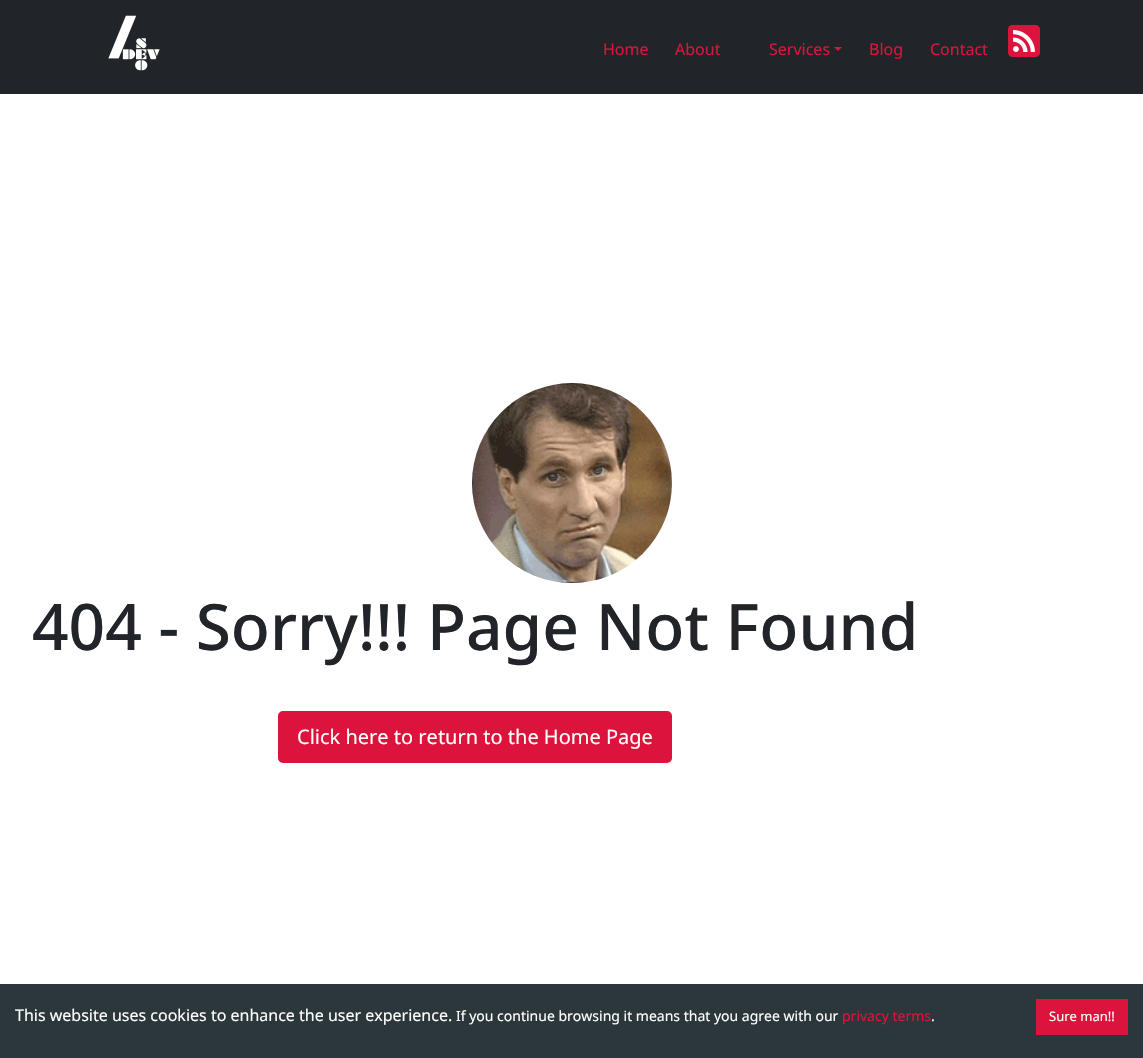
void draw(SkCanvas* canvas) {
  SkPaint paint;
  paint.setAntiAlias(true);
  auto face = [&](const char* family, int weight, float size, bool italic = false) {
    SkFontStyle style(weight, SkFontStyle::kNormal_Width,
      italic ? SkFontStyle::kItalic_Slant : SkFontStyle::kUpright_Slant);
    SkFont result(fontMgr->matchFamilyStyle(family, style), size);
    result.setSubpixel(true);
    return result;
  };
  auto paste = [&](const char* path, float x, float y, float w, float h) {
    auto image = SkImages::DeferredFromEncodedData(SkData::MakeFromFileName(path));
    canvas->drawImageRect(image, SkRect::MakeXYWH(x, y, w, h), SkSamplingOptions());
  };
  auto shape = [&](const char* data, bool evenOdd = false) {
    SkPath result = *SkParsePath::FromSVGString(data);
    if (evenOdd) result.setFillType(SkPathFillType::kEvenOdd);
    return result;
  };
  canvas->clear(0xffffffff);
  paint.setColor(0xff212529);
  canvas->drawRect(SkRect::MakeXYWH(0, 0, 1143, 94), paint);
  paste("img/1.png", 108, 15, 52, 56);
  paint.setColor(0xffdc143c);
  canvas->drawPath(shape("M834 47H842L838 51Z"), paint);
  paste("img/2.png", 1008, 25, 32, 32);
  paste("img/3.png", 472, 383, 200, 200);
  canvas->drawRoundRect(SkRect::MakeXYWH(279.5f, 712.5f, 391, 49), 3.5f, 3.5f, paint);
  paint.setStroke(true);
  paint.setStrokeWidth(3);
  canvas->drawRoundRect(SkRect::MakeXYWH(279.5f, 712.5f, 391, 49), 3.5f, 3.5f, paint);
  paint.setStroke(false);
  paint.setColor(0xff2b373b);
  canvas->drawRect(SkRect::MakeXYWH(0, 984, 1143, 74), paint);
  paint.setColor(0xffdc143c);
  canvas->drawRect(SkRect::MakeXYWH(1036, 999, 92, 36), paint);
  auto f0 = face("Noto Sans", 400, 16);
  {
    const struct { const char* s; float x, y; } items[] = {
      {"Home", 603, 55},
      {"About", 675, 55},
      {"Services", 769, 55},
      {"Blog", 869, 55},
      {"Contact", 930, 55},
    };
    for (auto [s, x, y] : items) {
      canvas->drawString(s, x, y, f0, paint);
    }
  }
  auto f1 = face("Noto Sans", 500, 64);
  paint.setColor(0xff212529);
  canvas->drawString("404 - Sorry!!! Page Not Found", 32, 650, f1, paint);
  auto f2 = face("Noto Sans", 400, 20);
  paint.setColor(0xffffffff);
  canvas->drawString("Click here to return to the Home Page", 297, 744, f2, paint);
  canvas->drawString("This website uses cookies to enhance the user experience.", 15, 1021, f0, paint);
  auto f3 = face("Noto Sans", 400, 14);
  canvas->drawString("If you continue browsing it means that you agree with our", 456, 1021, f3, paint);
  paint.setColor(0xffdc143c);
  canvas->drawString("privacy terms", 842, 1021, f3, paint);
  paint.setColor(0xffffffff);
  canvas->drawString(".", 931, 1021, f3, paint);
  auto f4 = face("Noto Sans", 400, 13);
  canvas->drawString("Sure man!!", 1049, 1021, f4, paint);
}
